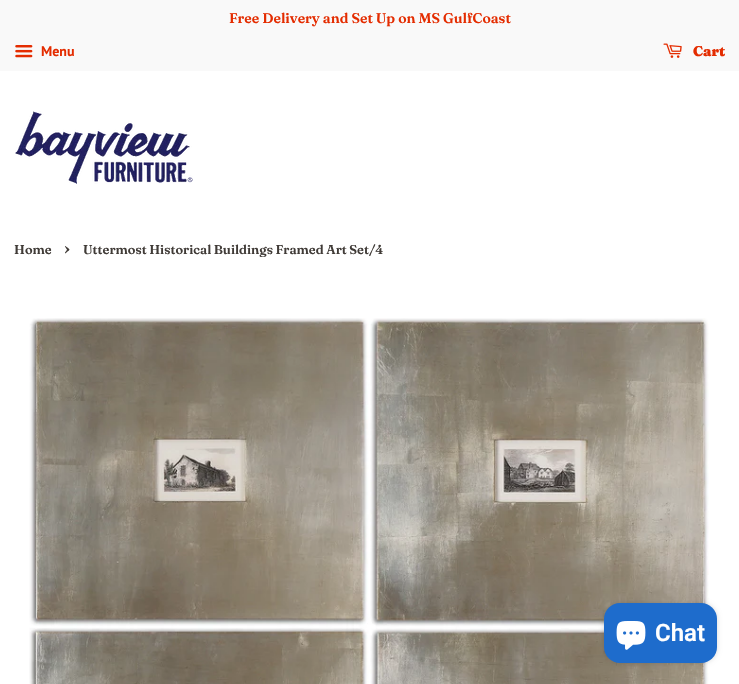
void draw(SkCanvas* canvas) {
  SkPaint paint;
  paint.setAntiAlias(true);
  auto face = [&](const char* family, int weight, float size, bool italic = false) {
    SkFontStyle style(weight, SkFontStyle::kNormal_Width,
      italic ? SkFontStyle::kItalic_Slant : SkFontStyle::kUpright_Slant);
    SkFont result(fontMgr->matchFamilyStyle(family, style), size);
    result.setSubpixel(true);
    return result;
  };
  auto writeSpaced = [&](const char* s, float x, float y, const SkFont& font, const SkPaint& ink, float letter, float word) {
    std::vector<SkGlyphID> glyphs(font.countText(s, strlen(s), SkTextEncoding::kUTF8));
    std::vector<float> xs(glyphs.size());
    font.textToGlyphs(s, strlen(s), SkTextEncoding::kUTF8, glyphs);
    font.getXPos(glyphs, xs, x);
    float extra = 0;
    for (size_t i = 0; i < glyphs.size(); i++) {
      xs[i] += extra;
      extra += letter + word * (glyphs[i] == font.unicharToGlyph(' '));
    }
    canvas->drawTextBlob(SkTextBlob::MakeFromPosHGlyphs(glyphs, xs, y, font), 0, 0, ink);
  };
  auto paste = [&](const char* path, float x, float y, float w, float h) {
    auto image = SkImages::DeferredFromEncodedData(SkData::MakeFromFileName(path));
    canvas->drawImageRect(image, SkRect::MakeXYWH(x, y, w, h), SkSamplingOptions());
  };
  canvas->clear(0xffffffff);
  paint.setColor(0xfff9f9f9);
  canvas->drawRect(SkRect::MakeXYWH(0, 0, 739, 71), paint);
  paste("img/1.png", 15, 45, 18, 13);
  paste("img/2.png", 663, 43, 19, 15);
  paste("img/3.png", 15, 111, 178, 73);
  paste("img/4.png", 29, 318, 680, 366);
  paint.setColor(0x26000000);
  paint.setMaskFilter(SkMaskFilter::MakeBlur(kNormal_SkBlurStyle, 2.5f));
  canvas->drawRoundRect(SkRect::MakeXYWH(604, 603, 113, 60), 16, 16, paint);
  paint.setMaskFilter(nullptr);
  paint.setColor(0xff1e6ccc);
  canvas->drawRoundRect(SkRect::MakeXYWH(604, 603, 113, 60), 16, 16, paint);
  paste("img/5.png", 616, 621, 30, 29);
  auto f0 = face("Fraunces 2", 600, 14);
  paint.setColor(0xffe42c00);
  canvas->drawString("Free Delivery and Set Up on MS GulfCoast", 229, 23, f0, paint);
  auto f1 = face("PT Sans", 700, 14);
  canvas->drawString("Menu", 41, 56, f1, paint);
  auto f2 = face("Fraunces", 900, 14);
  canvas->drawString("Cart", 693, 56, f2, paint);
  auto f3 = face("Fraunces", 600, 12.75f);
  paint.setColor(0xff403b37);
  canvas->drawString("Home", 14, 254, f3, paint);
  auto f4 = face("Fraunces", 600, 18);
  canvas->drawString("›", 64, 254, f4, paint);
  writeSpaced("Uttermost Historical Buildings Framed Art Set/4", 83, 254, f3, paint, 0, -0.25f);
  auto f5 = face("Roboto", 600, 24);
  paint.setColor(0xffffffff);
  canvas->drawString("Chat", 655, 641, f5, paint);
}
